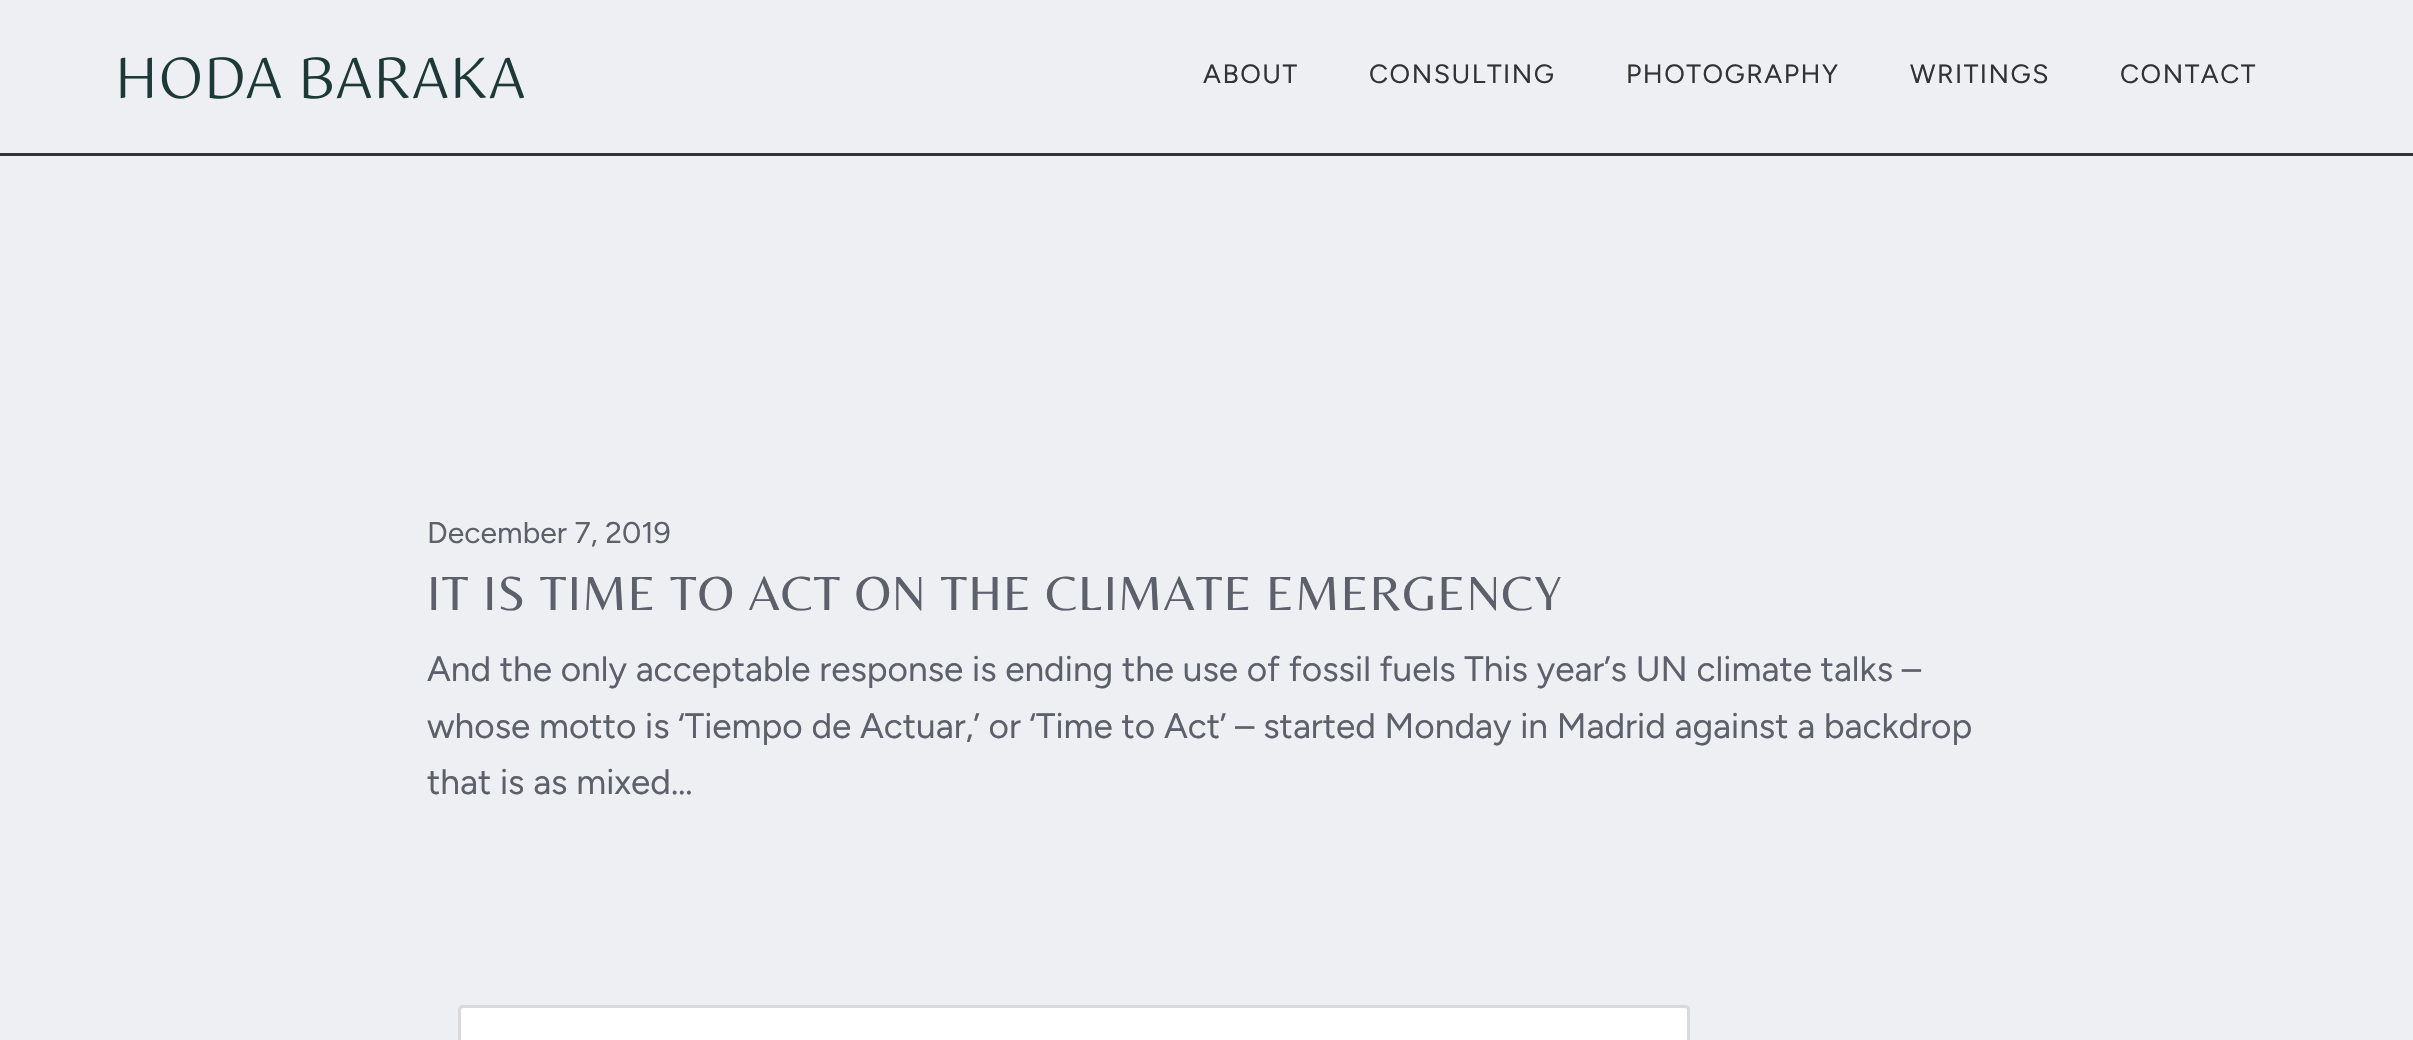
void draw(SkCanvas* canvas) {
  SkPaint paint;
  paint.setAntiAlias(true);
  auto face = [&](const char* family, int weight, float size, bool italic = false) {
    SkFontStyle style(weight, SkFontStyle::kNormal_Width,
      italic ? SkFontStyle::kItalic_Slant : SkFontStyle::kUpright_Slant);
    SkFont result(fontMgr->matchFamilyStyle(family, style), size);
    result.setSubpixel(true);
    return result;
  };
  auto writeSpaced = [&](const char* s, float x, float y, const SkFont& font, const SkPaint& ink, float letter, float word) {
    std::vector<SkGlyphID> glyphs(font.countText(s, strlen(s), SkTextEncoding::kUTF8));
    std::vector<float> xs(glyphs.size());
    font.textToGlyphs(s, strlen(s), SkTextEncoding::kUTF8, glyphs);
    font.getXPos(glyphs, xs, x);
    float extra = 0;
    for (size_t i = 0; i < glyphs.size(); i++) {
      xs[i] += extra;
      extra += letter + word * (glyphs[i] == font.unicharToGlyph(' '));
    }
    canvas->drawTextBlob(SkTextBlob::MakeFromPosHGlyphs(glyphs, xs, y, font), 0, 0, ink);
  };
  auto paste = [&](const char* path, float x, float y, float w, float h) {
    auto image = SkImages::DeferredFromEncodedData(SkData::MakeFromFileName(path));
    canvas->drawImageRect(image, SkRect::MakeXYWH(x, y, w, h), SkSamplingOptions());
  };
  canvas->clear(0xffedeff2);
  paint.setColor(0xff333333);
  canvas->drawRect(SkRect::MakeXYWH(0, 153, 2413, 3), paint);
  paste("img/1.png", 120, 57, 405, 42);
  paint.setColor(0xffffffff);
  canvas->drawRoundRect(SkRect::MakeXYWH(458, 1005, 1232, 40), 5, 5, paint);
  paint.setStroke(true);
  paint.setStrokeWidth(3);
  paint.setColor(0x26000000);
  canvas->drawRoundRect(SkRect::MakeXYWH(459.5f, 1006.5f, 1229, 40), 3.5f, 3.5f, paint);
  auto f0 = face("Figtree", 400, 26.5f);
  paint.setStroke(false);
  paint.setColor(0xff333333);
  {
    const struct { const char* s; float x, y; } items[] = {
      {"ABOUT", 1203, 83},
      {"CONSULTING", 1369, 83},
      {"PHOTOGRAPHY", 1626, 83},
      {"WRITINGS", 1910, 83},
      {"CONTACT", 2120, 83},
    };
    for (auto [s, x, y] : items) {
      writeSpaced(s, x, y, f0, paint, 1.5f, 0);
    }
  }
  auto f1 = face("Figtree", 400, 30);
  paint.setColor(0xff5b606b);
  writeSpaced("December 7, 2019", 427, 543, f1, paint, 0.1f, 0);
  auto f2 = face("Belleza", 400, 49.75f);
  writeSpaced("IT IS TIME TO ACT ON THE CLIMATE EMERGENCY", 427, 610, f2, paint, 1.1f, 0);
  auto f3 = face("Figtree", 400, 35.2f);
  {
    const struct { const char* s; float x, y; } items[] = {
      {"And the only acceptable response is ending the use of fossil fuels This year’s UN climate talks –", 427, 681},
      {"whose motto is ‘Tiempo de Actuar,’ or ‘Time to Act’ – started Monday in Madrid against a backdrop", 427, 738},
      {"that is as mixed…", 427, 794},
    };
    for (auto [s, x, y] : items) {
      canvas->drawString(s, x, y, f3, paint);
    }
  }
}
